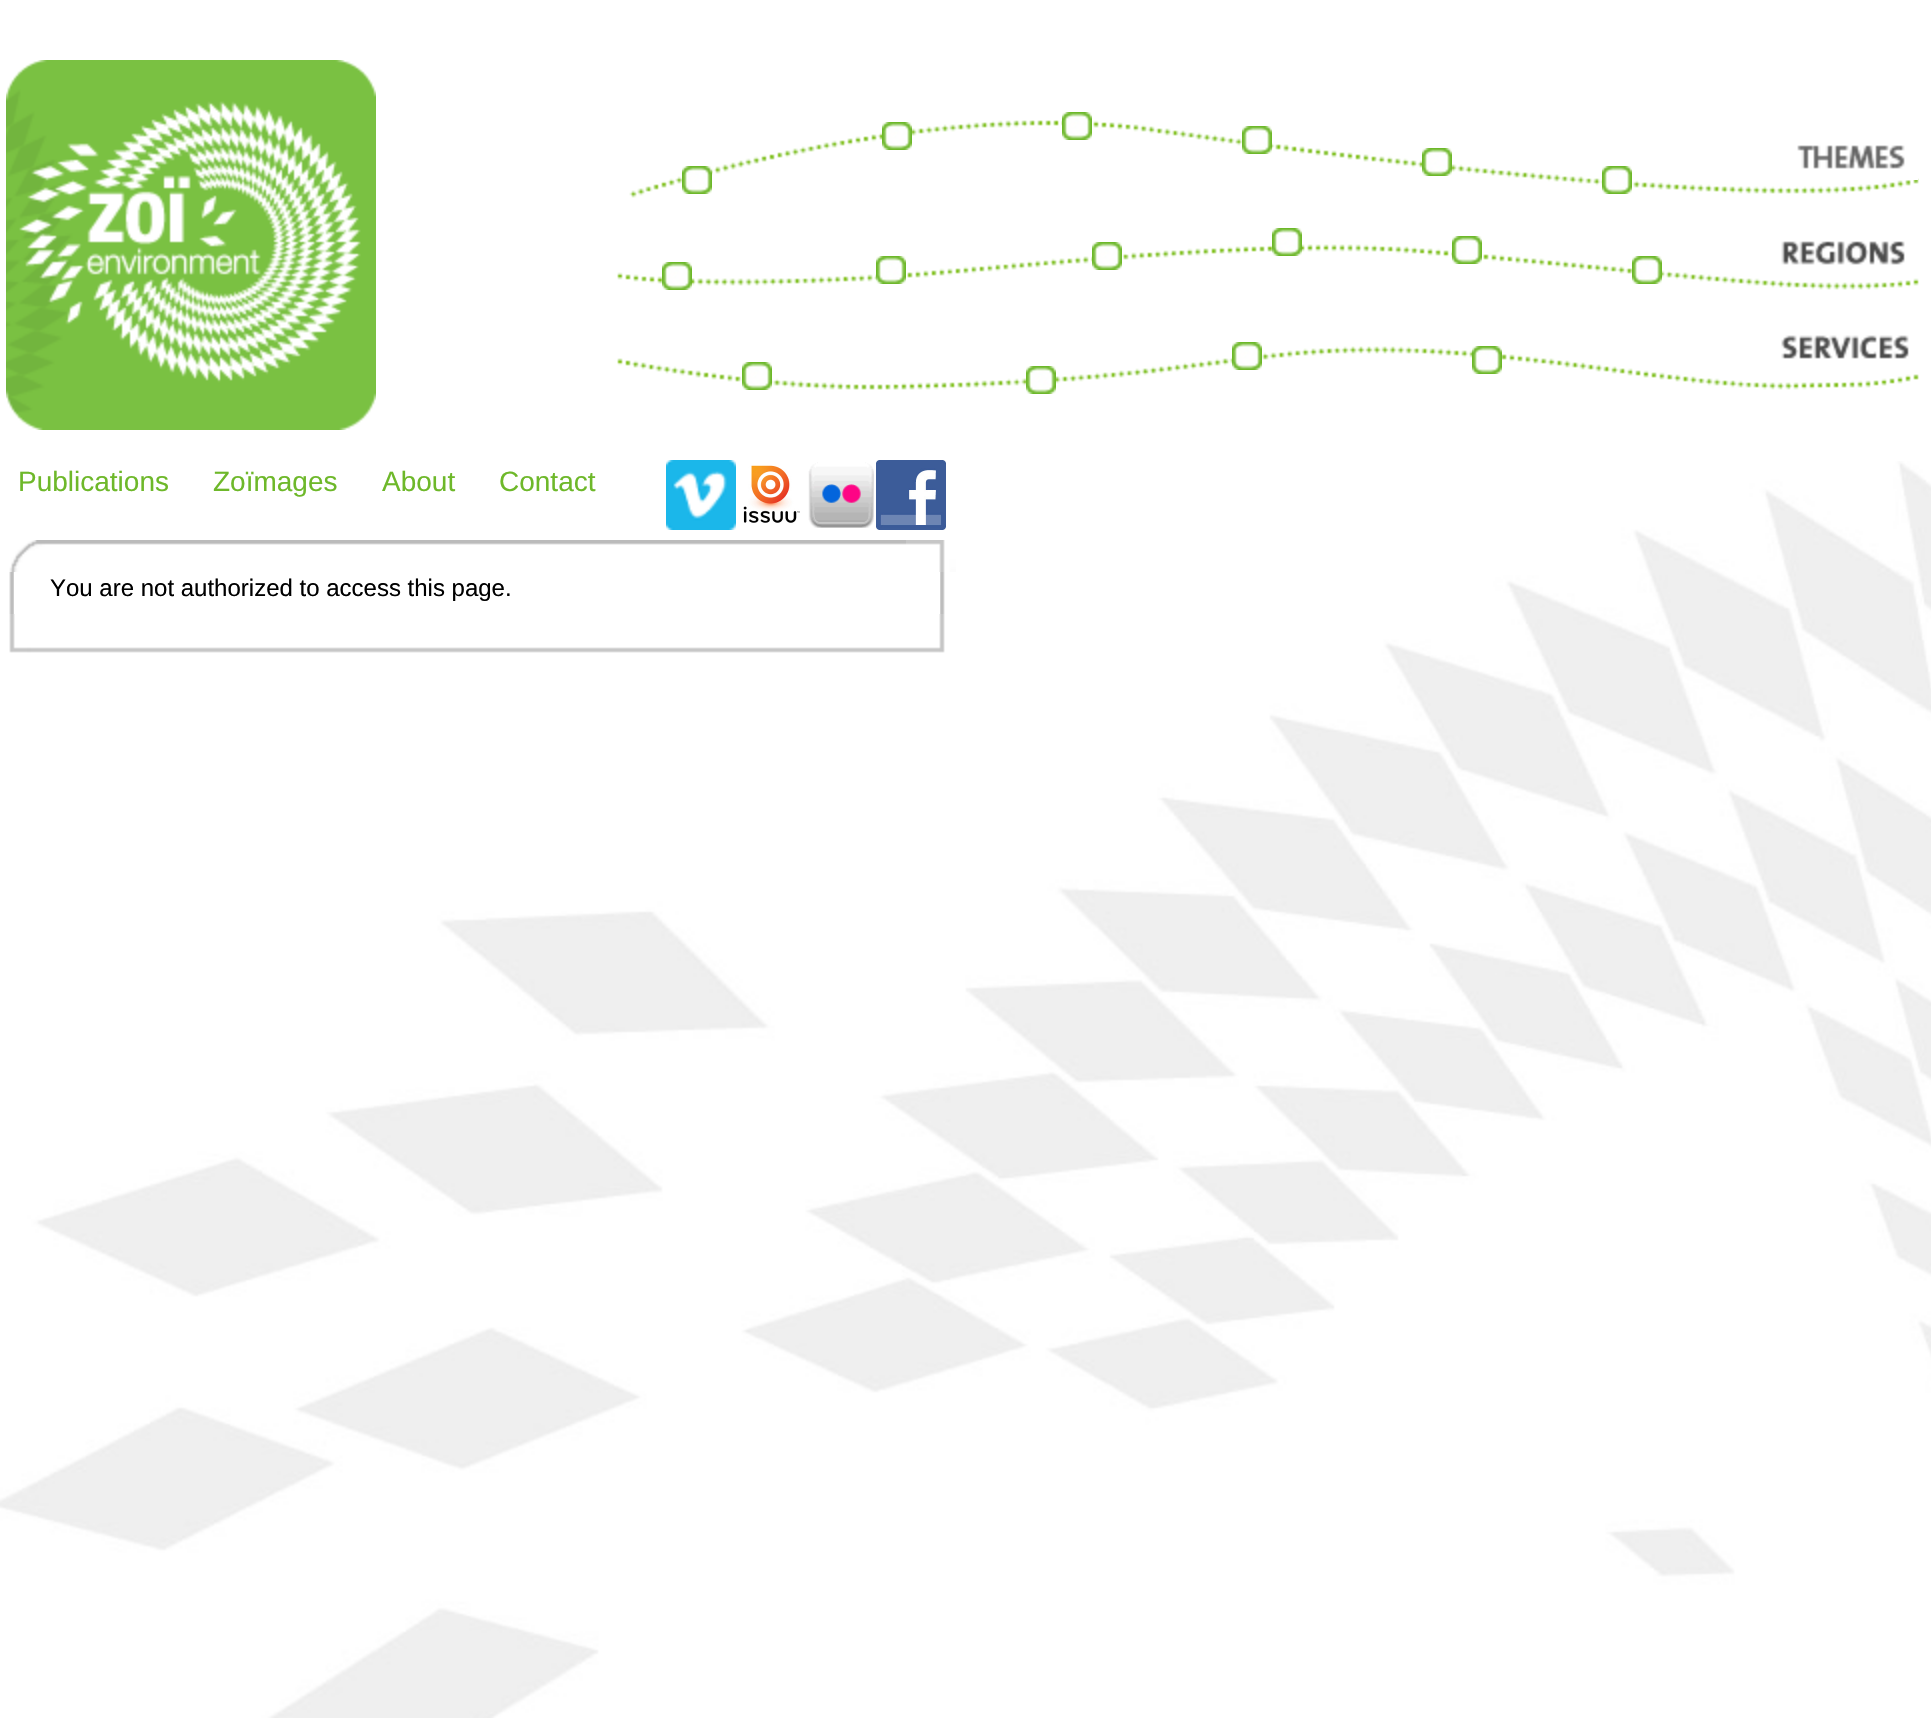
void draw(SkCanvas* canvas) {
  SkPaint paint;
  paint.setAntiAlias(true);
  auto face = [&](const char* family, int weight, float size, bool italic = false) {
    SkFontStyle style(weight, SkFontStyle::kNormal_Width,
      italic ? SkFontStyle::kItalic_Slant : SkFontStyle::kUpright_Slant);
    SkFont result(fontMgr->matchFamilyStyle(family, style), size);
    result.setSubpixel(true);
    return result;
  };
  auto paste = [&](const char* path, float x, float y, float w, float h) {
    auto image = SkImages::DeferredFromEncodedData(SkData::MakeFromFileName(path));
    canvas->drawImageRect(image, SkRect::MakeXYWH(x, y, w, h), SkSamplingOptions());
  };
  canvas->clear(0xffffffff);
  paste("img/1.png", 0, 461, 1931, 1257);
  paste("img/2.png", 6, 60, 370, 370);
  paste("img/3.png", 617, 120, 1302, 270);
  paste("img/4.png", 882, 122, 30, 28);
  paste("img/4.png", 1062, 112, 30, 28);
  paste("img/4.png", 1242, 126, 30, 28);
  paste("img/4.png", 1422, 148, 30, 28);
  paste("img/5.png", 1797, 145, 121, 35);
  paste("img/4.png", 682, 166, 30, 28);
  paste("img/4.png", 1602, 166, 30, 28);
  paste("img/4.png", 662, 262, 30, 28);
  paste("img/4.png", 876, 256, 30, 28);
  paste("img/4.png", 1092, 242, 30, 28);
  paste("img/4.png", 1272, 228, 30, 28);
  paste("img/4.png", 1452, 236, 30, 28);
  paste("img/4.png", 1632, 256, 30, 28);
  paste("img/6.png", 1781, 241, 124, 24);
  paste("img/4.png", 742, 362, 30, 28);
  paste("img/4.png", 1026, 366, 30, 28);
  paste("img/4.png", 1232, 342, 30, 28);
  paste("img/4.png", 1472, 346, 30, 28);
  paste("img/7.png", 1781, 335, 128, 24);
  paste("img/8.png", 666, 460, 70, 70);
  paste("img/9.png", 743, 465, 57, 58);
  paste("img/10.png", 808, 462, 66, 66);
  paste("img/11.png", 876, 460, 70, 70);
  paste("img/12.png", 9, 540, 897, 32);
  paste("img/13.png", 906, 540, 50, 32);
  paste("img/14.png", 9, 572, 5, 42);
  paste("img/15.png", 940, 572, 5, 42);
  paste("img/16.png", 9, 614, 930, 39);
  paste("img/17.png", 939, 614, 17, 39);
  auto f0 = face("Liberation Sans", 400, 28);
  paint.setColor(0xff6eb82a);
  {
    const struct { const char* s; float x, y; } items[] = {
      {"Publications", 18, 491},
      {"Zoïmages", 213, 491},
      {"About", 382, 491},
      {"Contact", 499, 491},
    };
    for (auto [s, x, y] : items) {
      canvas->drawString(s, x, y, f0, paint);
    }
  }
  auto f1 = face("Liberation Sans", 400, 24);
  paint.setColor(0xff000000);
  canvas->drawString("You are not authorized to access this page.", 50, 596, f1, paint);
}
